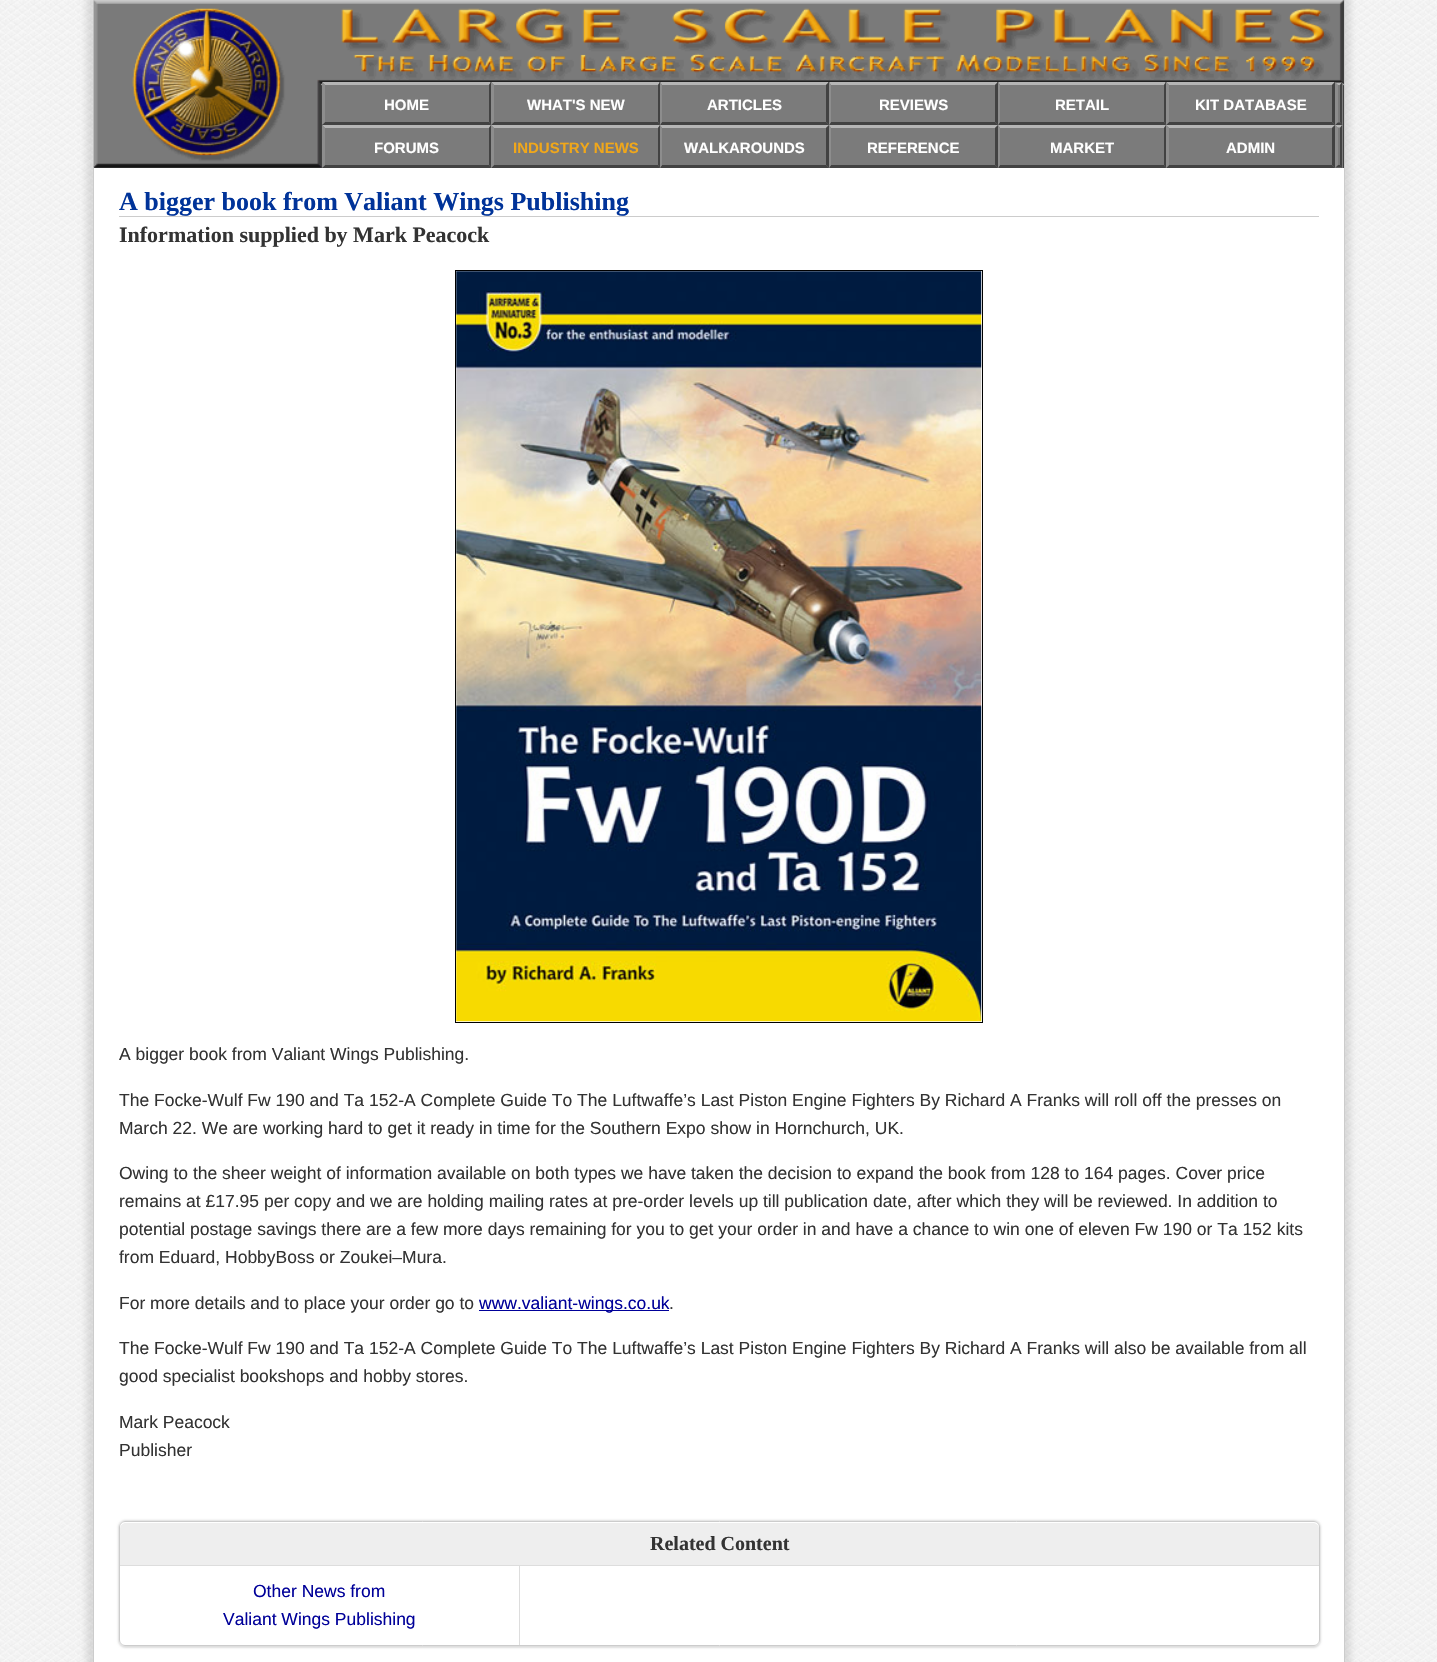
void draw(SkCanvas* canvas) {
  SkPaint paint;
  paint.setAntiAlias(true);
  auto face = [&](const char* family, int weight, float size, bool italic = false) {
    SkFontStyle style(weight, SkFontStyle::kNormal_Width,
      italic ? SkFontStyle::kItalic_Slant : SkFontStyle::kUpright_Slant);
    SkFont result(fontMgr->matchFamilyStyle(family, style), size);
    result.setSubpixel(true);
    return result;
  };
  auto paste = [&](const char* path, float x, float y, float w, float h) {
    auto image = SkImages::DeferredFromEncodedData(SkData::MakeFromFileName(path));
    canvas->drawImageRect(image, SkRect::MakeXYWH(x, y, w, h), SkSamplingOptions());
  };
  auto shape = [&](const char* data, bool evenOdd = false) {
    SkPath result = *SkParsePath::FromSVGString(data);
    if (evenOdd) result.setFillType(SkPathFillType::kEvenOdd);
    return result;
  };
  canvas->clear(0xffffffff);
  paste("img/1.png", 0, 0, 1437, 1662);
  paint.setColor(0x1a000000);
  paint.setMaskFilter(SkMaskFilter::MakeBlur(kNormal_SkBlurStyle, 3));
  canvas->drawRect(SkRect::MakeXYWH(86, -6, 1265, 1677), paint);
  paint.setMaskFilter(nullptr);
  {
    const struct { float x, y, w, h; SkColor color; } items[] = {
      {94, 168, 1250, 1494, 0xffffffff},
      {1344, 0, 1, 1662, 0xffcccccc},
      {93, 0, 1, 1662, 0xffcccccc},
      {94, 0, 1250, 168, 0xff424242},
    };
    for (auto [x, y, w, h, color] : items) {
      paint.setColor(color);
      canvas->drawRect(SkRect::MakeXYWH(x, y, w, h), paint);
    }
  }
  paste("img/2.png", 93, 0, 1251, 168);
  paint.setColor(0xff7b7b7b);
  canvas->drawRect(SkRect::MakeXYWH(323, 83, 1020, 42), paint);
  paint.setColor(0xffb5b5b5);
  canvas->drawPath(shape("M322 82H491L489 85H325Z"), paint);
  paint.setColor(0xff424242);
  canvas->drawPath(shape("M491 82V125L489 122V85Z"), paint);
  canvas->drawPath(shape("M491 125H322L325 122H489Z"), paint);
  paint.setColor(0xff8d8d8d);
  canvas->drawPath(shape("M322 125V82L325 85V122Z"), paint);
  paint.setColor(0xffb5b5b5);
  canvas->drawPath(shape("M491 82H660L658 85H494Z"), paint);
  paint.setColor(0xff424242);
  canvas->drawPath(shape("M660 82V125L658 122V85Z"), paint);
  canvas->drawPath(shape("M660 125H491L494 122H658Z"), paint);
  paint.setColor(0xff8d8d8d);
  canvas->drawPath(shape("M491 125V82L494 85V122Z"), paint);
  paint.setColor(0xffb5b5b5);
  canvas->drawPath(shape("M660 82H829L826 85H662Z"), paint);
  paint.setColor(0xff424242);
  canvas->drawPath(shape("M829 82V125L826 122V85Z"), paint);
  canvas->drawPath(shape("M829 125H660L662 122H826Z"), paint);
  paint.setColor(0xff8d8d8d);
  canvas->drawPath(shape("M660 125V82L662 85V122Z"), paint);
  paint.setColor(0xffb5b5b5);
  canvas->drawPath(shape("M829 82H998L995 85H831Z"), paint);
  paint.setColor(0xff424242);
  canvas->drawPath(shape("M998 82V125L995 122V85Z"), paint);
  canvas->drawPath(shape("M998 125H829L831 122H995Z"), paint);
  paint.setColor(0xff8d8d8d);
  canvas->drawPath(shape("M829 125V82L831 85V122Z"), paint);
  paint.setColor(0xffb5b5b5);
  canvas->drawPath(shape("M998 82H1166L1164 85H1000Z"), paint);
  paint.setColor(0xff424242);
  canvas->drawPath(shape("M1166 82V125L1164 122V85Z"), paint);
  canvas->drawPath(shape("M1166 125H998L1000 122H1164Z"), paint);
  paint.setColor(0xff8d8d8d);
  canvas->drawPath(shape("M998 125V82L1000 85V122Z"), paint);
  paint.setColor(0xffb5b5b5);
  canvas->drawPath(shape("M1166 82H1335L1332 85H1169Z"), paint);
  paint.setColor(0xff424242);
  canvas->drawPath(shape("M1335 82V125L1332 122V85Z"), paint);
  canvas->drawPath(shape("M1335 125H1166L1169 122H1332Z"), paint);
  paint.setColor(0xff8d8d8d);
  canvas->drawPath(shape("M1166 125V82L1169 85V122Z"), paint);
  paint.setColor(0xffb5b5b5);
  canvas->drawPath(shape("M1335 82.5H1342.5L1340 85H1337.5Z"), paint);
  paint.setColor(0xff424242);
  canvas->drawPath(shape("M1342 82V125L1340 122V85Z"), paint);
  canvas->drawPath(shape("M1342.5 125H1335L1337.5 122.5H1340Z"), paint);
  paint.setColor(0xff8d8d8d);
  canvas->drawPath(shape("M1335 125V82L1338 85V122Z"), paint);
  paint.setColor(0xff7b7b7b);
  canvas->drawRect(SkRect::MakeXYWH(323, 125, 168, 43), paint);
  paint.setColor(0xffb5b5b5);
  canvas->drawPath(shape("M322 125H491L489 128H325Z"), paint);
  paint.setColor(0xff424242);
  canvas->drawPath(shape("M491 125V168L489 165V128Z"), paint);
  canvas->drawPath(shape("M491 168H322L325 165H489Z"), paint);
  paint.setColor(0xff8d8d8d);
  canvas->drawPath(shape("M322 168V125L325 128V165Z"), paint);
  paint.setColor(0xff7a7a7a);
  canvas->drawRect(SkRect::MakeXYWH(491, 125, 169, 43), paint);
  paint.setColor(0xffb5b5b5);
  canvas->drawPath(shape("M491 125H660L658 128H494Z"), paint);
  paint.setColor(0xff424242);
  canvas->drawPath(shape("M660 125V168L658 165V128Z"), paint);
  canvas->drawPath(shape("M660 168H491L494 165H658Z"), paint);
  paint.setColor(0xff8d8d8d);
  canvas->drawPath(shape("M491 168V125L494 128V165Z"), paint);
  paint.setColor(0xff7b7b7b);
  canvas->drawRect(SkRect::MakeXYWH(660, 125, 683, 43), paint);
  paint.setColor(0xffb5b5b5);
  canvas->drawPath(shape("M660 125H829L826 128H662Z"), paint);
  paint.setColor(0xff424242);
  canvas->drawPath(shape("M829 125V168L826 165V128Z"), paint);
  canvas->drawPath(shape("M829 168H660L662 165H826Z"), paint);
  paint.setColor(0xff8d8d8d);
  canvas->drawPath(shape("M660 168V125L662 128V165Z"), paint);
  paint.setColor(0xffb5b5b5);
  canvas->drawPath(shape("M829 125H998L995 128H831Z"), paint);
  paint.setColor(0xff424242);
  canvas->drawPath(shape("M998 125V168L995 165V128Z"), paint);
  canvas->drawPath(shape("M998 168H829L831 165H995Z"), paint);
  paint.setColor(0xff8d8d8d);
  canvas->drawPath(shape("M829 168V125L831 128V165Z"), paint);
  paint.setColor(0xffb5b5b5);
  canvas->drawPath(shape("M998 125H1166L1164 128H1000Z"), paint);
  paint.setColor(0xff424242);
  canvas->drawPath(shape("M1166 125V168L1164 165V128Z"), paint);
  canvas->drawPath(shape("M1166 168H998L1000 165H1164Z"), paint);
  paint.setColor(0xff8d8d8d);
  canvas->drawPath(shape("M998 168V125L1000 128V165Z"), paint);
  paint.setColor(0xffb5b5b5);
  canvas->drawPath(shape("M1166 125H1335L1332 128H1169Z"), paint);
  paint.setColor(0xff424242);
  canvas->drawPath(shape("M1335 125V168L1332 165V128Z"), paint);
  canvas->drawPath(shape("M1335 168H1166L1169 165H1332Z"), paint);
  paint.setColor(0xff8d8d8d);
  canvas->drawPath(shape("M1166 168V125L1169 128V165Z"), paint);
  paint.setColor(0xffb5b5b5);
  canvas->drawPath(shape("M1335 125H1342.5L1340 127.5H1337.5Z"), paint);
  paint.setColor(0xff424242);
  canvas->drawPath(shape("M1342 125V168L1340 165V128Z"), paint);
  canvas->drawPath(shape("M1342.5 167.5H1335L1337.5 165H1340Z"), paint);
  paint.setColor(0xff8d8d8d);
  canvas->drawPath(shape("M1335 168V125L1338 128V165Z"), paint);
  paint.setColor(0xffcccccc);
  canvas->drawRect(SkRect::MakeXYWH(119, 216, 1200, 1), paint);
  paint.setStroke(true);
  paint.setStrokeWidth(1);
  paint.setColor(0xff000000);
  canvas->drawRect(SkRect::MakeXYWH(455.5f, 270.5f, 527, 752), paint);
  paste("img/3.png", 456, 271, 526, 751);
  paint.setStroke(false);
  paint.setColor(0xff000099);
  canvas->drawRect(SkRect::MakeXYWH(479, 1310, 190, 1), paint);
  canvas->save();
  canvas->clipPath(shape("M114 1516H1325V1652H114ZM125 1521H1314C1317.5 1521 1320 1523.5 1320 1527V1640C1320 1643.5 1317.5 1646 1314 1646H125C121.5 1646 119 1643.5 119 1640V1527C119 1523.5 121.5 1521 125 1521Z", true), true);
  paint.setColor(0xffdddddd);
  paint.setMaskFilter(SkMaskFilter::MakeBlur(kNormal_SkBlurStyle, 1));
  canvas->drawRoundRect(SkRect::MakeXYWH(118, 1520, 1203, 128), 8, 8, paint);
  paint.setMaskFilter(nullptr);
  canvas->restore();
  paint.setStroke(true);
  paint.setColor(0xffcccccc);
  canvas->drawRoundRect(SkRect::MakeXYWH(119.5f, 1521.5f, 1200, 124), 5.5f, 5.5f, paint);
  paint.setStroke(false);
  paint.setColor(0xffeeeeee);
  canvas->drawPath(shape("M126 1523H1313C1316.5 1523 1319 1525.5 1319 1529V1566H120V1529C120 1525.5 122.5 1523 126 1523Z"), paint);
  paint.setColor(0xffdddddd);
  canvas->drawRect(SkRect::MakeXYWH(120, 1565, 1199, 1), paint);
  canvas->drawRect(SkRect::MakeXYWH(519, 1566, 1, 79), paint);
  auto f0 = face("Liberation Sans", 700, 15);
  paint.setColor(0xffffffff);
  {
    const struct { const char* s; float x, y; } items[] = {
      {"HOME", 384, 110},
      {"WHAT'S NEW", 527, 110},
      {"ARTICLES", 707, 110},
      {"REVIEWS", 879, 110},
      {"RETAIL", 1055, 110},
      {"KIT DATABASE", 1195, 110},
      {"FORUMS", 374, 153},
    };
    for (auto [s, x, y] : items) {
      canvas->drawString(s, x, y, f0, paint);
    }
  }
  paint.setColor(0xfff0a71a);
  canvas->drawString("INDUSTRY NEWS", 513, 153, f0, paint);
  paint.setColor(0xffffffff);
  {
    const struct { const char* s; float x, y; } items[] = {
      {"WALKAROUNDS", 684, 153},
      {"REFERENCE", 867, 153},
      {"MARKET", 1050, 153},
      {"ADMIN", 1226, 153},
    };
    for (auto [s, x, y] : items) {
      canvas->drawString(s, x, y, f0, paint);
    }
  }
  auto f1 = face("Liberation Serif", 700, 26);
  paint.setColor(0xff003399);
  canvas->drawString("A bigger book from Valiant Wings Publishing", 119, 210, f1, paint);
  auto f2 = face("Liberation Serif", 700, 22);
  paint.setColor(0xff333333);
  canvas->drawString("Information supplied by Mark Peacock", 119, 242, f2, paint);
  auto f3 = face("Liberation Sans", 400, 17.5f);
  {
    const struct { const char* s; float x, y; } items[] = {
      {"A bigger book from Valiant Wings Publishing.", 119, 1060},
      {"The Focke-Wulf Fw 190 and Ta 152-A Complete Guide To The Luftwaffe’s Last Piston Engine Fighters By Richard A Franks will roll off the presses on", 119, 1106},
      {"March 22. We are working hard to get it ready in time for the Southern Expo show in Hornchurch, UK.", 119, 1134},
      {"Owing to the sheer weight of information available on both types we have taken the decision to expand the book from 128 to 164 pages. Cover price", 119, 1179},
      {"remains at £17.95 per copy and we are holding mailing rates at pre-order levels up till publication date, after which they will be reviewed. In addition to", 119, 1207},
      {"potential postage savings there are a few more days remaining for you to get your order in and have a chance to win one of eleven Fw 190 or Ta 152 kits", 119, 1235},
      {"from Eduard, HobbyBoss or Zoukei–Mura.", 119, 1263},
      {"For more details and to place your order go to", 119, 1309},
    };
    for (auto [s, x, y] : items) {
      canvas->drawString(s, x, y, f3, paint);
    }
  }
  paint.setColor(0xff000099);
  canvas->drawString("www.valiant-wings.co.uk", 479, 1309, f3, paint);
  paint.setColor(0xff333333);
  {
    const struct { const char* s; float x, y; } items[] = {
      {".", 669, 1309},
      {"The Focke-Wulf Fw 190 and Ta 152-A Complete Guide To The Luftwaffe’s Last Piston Engine Fighters By Richard A Franks will also be available from all", 119, 1354},
      {"good specialist bookshops and hobby stores.", 119, 1382},
      {"Mark Peacock", 119, 1428},
      {"Publisher", 119, 1456},
    };
    for (auto [s, x, y] : items) {
      canvas->drawString(s, x, y, f3, paint);
    }
  }
  auto f4 = face("Liberation Serif", 700, 20);
  canvas->drawString("Related Content", 650, 1550, f4, paint);
  paint.setColor(0xff000099);
  canvas->drawString("Other News from", 253, 1597, f3, paint);
  canvas->drawString("Valiant Wings Publishing", 223, 1625, f3, paint);
}
